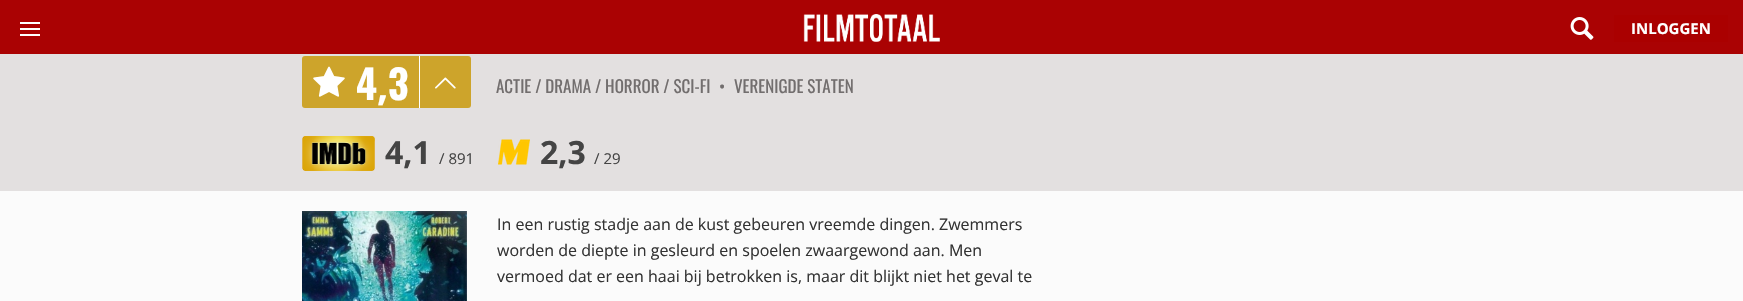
void draw(SkCanvas* canvas) {
  SkPaint paint;
  paint.setAntiAlias(true);
  auto face = [&](const char* family, int weight, float size, bool italic = false) {
    SkFontStyle style(weight, SkFontStyle::kNormal_Width,
      italic ? SkFontStyle::kItalic_Slant : SkFontStyle::kUpright_Slant);
    SkFont result(fontMgr->matchFamilyStyle(family, style), size);
    result.setSubpixel(true);
    return result;
  };
  auto paste = [&](const char* path, float x, float y, float w, float h) {
    auto image = SkImages::DeferredFromEncodedData(SkData::MakeFromFileName(path));
    canvas->drawImageRect(image, SkRect::MakeXYWH(x, y, w, h), SkSamplingOptions());
  };
  canvas->clear(0xfffbfbfb);
  {
    const struct { float x, y, w, h; SkColor color; } items[] = {
      {0, 0, 1743, 54, 0xffaa0203},
      {20, 28, 20, 2, 0xffffffff},
      {20, 22, 20, 2, 0xffffffff},
      {20, 34, 20, 2, 0xffffffff},
    };
    for (auto [x, y, w, h, color] : items) {
      paint.setColor(color);
      canvas->drawRect(SkRect::MakeXYWH(x, y, w, h), paint);
    }
  }
  paste("img/1.png", 803, 14, 137, 28);
  paste("img/2.png", 1570, 17, 24, 23);
  paint.setColor(0xffaa0000);
  canvas->drawRect(SkRect::MakeXYWH(1614, 15, 114, 27), paint);
  paint.setColor(0xffe3e0e0);
  canvas->drawRect(SkRect::MakeXYWH(0, 54, 1743, 137), paint);
  paint.setColor(0xffcda42b);
  canvas->drawRoundRect(SkRect::MakeXYWH(302, 56, 169, 52), 3, 3, paint);
  paste("img/3.png", 313, 66, 32, 31);
  paint.setColor(0xffffffff);
  canvas->drawRect(SkRect::MakeXYWH(419, 56, 1, 52), paint);
  paste("img/4.png", 435, 77, 21, 12);
  paste("img/5.png", 302, 136, 73, 35);
  paste("img/6.png", 498, 139, 32, 26);
  paste("img/7.png", 302, 211, 165, 90);
  auto f0 = face("Open Sans", 700, 15);
  canvas->drawString("INLOGGEN", 1631, 34, f0, paint);
  auto f1 = face("Oswald", 700, 40);
  canvas->drawString("4", 356, 100, f1, paint);
  auto f2 = face("Open Sans", 700, 40);
  canvas->drawString(",", 377, 100, f2, paint);
  canvas->drawString("3", 388, 100, f1, paint);
  auto f3 = face("Oswald", 400, 17);
  paint.setColor(0xff726e6e);
  {
    const struct { const char* s; float x, y; } items[] = {
      {"ACTIE / DRAMA / HORROR / SCI-FI", 496, 93},
      {"•", 719, 93},
      {"VERENIGDE STATEN", 734, 93},
    };
    for (auto [s, x, y] : items) {
      canvas->drawString(s, x, y, f3, paint);
    }
  }
  auto f4 = face("Open Sans", 700, 32);
  paint.setColor(0xff444444);
  canvas->drawString("4,1", 385, 164, f4, paint);
  auto f5 = face("Open Sans", 400, 15);
  canvas->drawString("/ 891", 439, 164, f5, paint);
  canvas->drawString("2,3", 540, 164, f4, paint);
  canvas->drawString("/ 29", 594, 164, f5, paint);
  auto f6 = face("Open Sans", 400, 16);
  paint.setColor(0xff333333);
  {
    const struct { const char* s; float x, y; } items[] = {
      {"In een rustig stadje aan de kust gebeuren vreemde dingen. Zwemmers", 497, 230},
      {"worden de diepte in gesleurd en spoelen zwaargewond aan. Men", 497, 256},
      {"vermoed dat er een haai bij betrokken is, maar dit blijkt niet het geval te", 497, 282},
    };
    for (auto [s, x, y] : items) {
      canvas->drawString(s, x, y, f6, paint);
    }
  }
}
